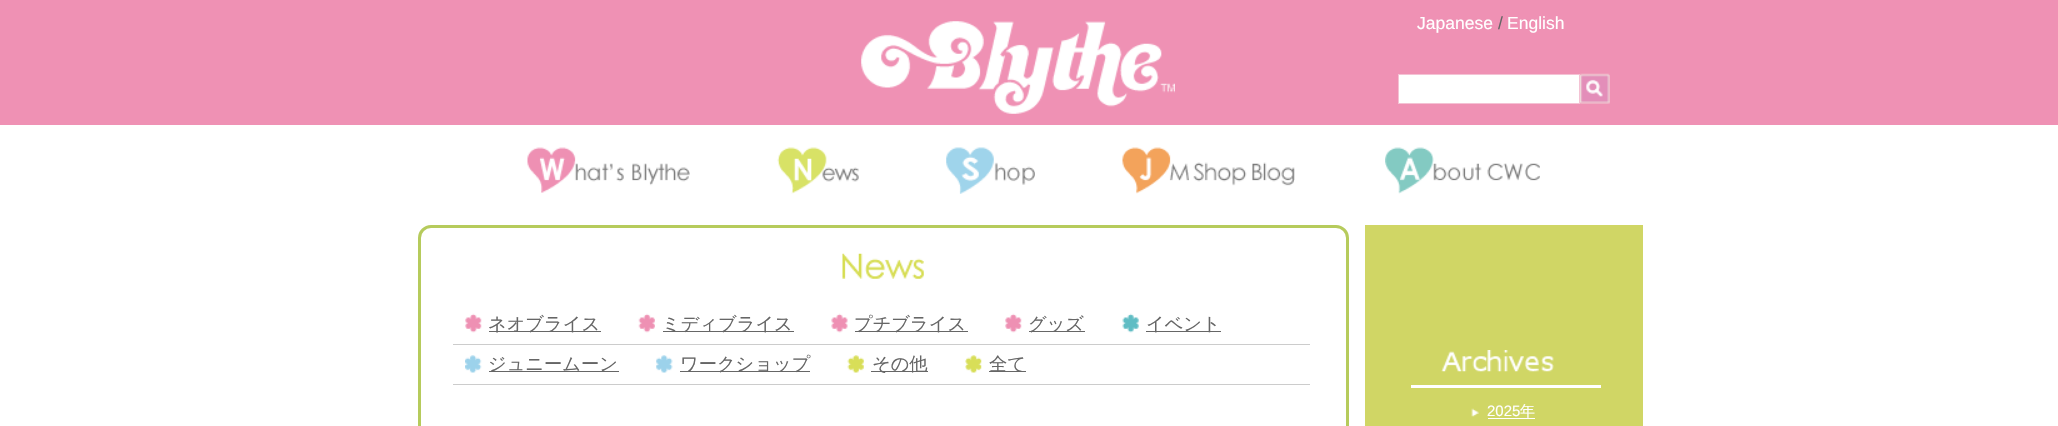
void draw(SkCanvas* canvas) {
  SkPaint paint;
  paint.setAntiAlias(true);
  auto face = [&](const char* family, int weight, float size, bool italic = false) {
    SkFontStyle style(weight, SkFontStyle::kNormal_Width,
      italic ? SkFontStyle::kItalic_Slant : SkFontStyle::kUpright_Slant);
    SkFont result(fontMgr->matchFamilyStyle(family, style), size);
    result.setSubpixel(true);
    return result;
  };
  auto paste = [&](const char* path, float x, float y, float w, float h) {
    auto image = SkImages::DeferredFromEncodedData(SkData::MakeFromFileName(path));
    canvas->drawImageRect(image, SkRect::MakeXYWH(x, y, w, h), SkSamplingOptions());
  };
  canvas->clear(0xffffffff);
  paint.setColor(0xffef91b4);
  canvas->drawRect(SkRect::MakeXYWH(0, 0, 2058, 125), paint);
  paste("img/1.png", 861, 21, 314, 93);
  paint.setColor(0xffffffff);
  canvas->drawRect(SkRect::MakeXYWH(1398.5f, 74.5f, 181, 29), paint);
  paint.setStroke(true);
  paint.setStrokeWidth(1);
  paint.setColor(0xfff4c2d4);
  canvas->drawRect(SkRect::MakeXYWH(1398.5f, 74.5f, 181, 29), paint);
  paste("img/2.png", 1580, 73, 30, 31);
  paste("img/3.png", 527, 147, 163, 46);
  paste("img/4.png", 777, 147, 82, 47);
  paste("img/5.png", 946, 147, 89, 47);
  paste("img/6.png", 1122, 147, 173, 47);
  paste("img/7.png", 1385, 147, 155, 47);
  paint.setStrokeWidth(3);
  paint.setColor(0xffb6cb5c);
  canvas->drawRoundRect(SkRect::MakeXYWH(419.5f, 226.5f, 928, 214), 11.5f, 11.5f, paint);
  paste("img/8.png", 842, 253, 82, 26);
  paint.setStroke(false);
  paint.setColor(0xffcccccc);
  canvas->drawRect(SkRect::MakeXYWH(453, 344, 857, 1), paint);
  paste("img/9.png", 465, 313, 17, 20);
  paint.setColor(0xff666666);
  canvas->drawRect(SkRect::MakeXYWH(489, 331, 112, 1), paint);
  paste("img/10.png", 638, 313, 17, 20);
  canvas->drawRect(SkRect::MakeXYWH(663, 331, 131, 1), paint);
  paste("img/11.png", 831, 313, 17, 20);
  canvas->drawRect(SkRect::MakeXYWH(855, 331, 113, 1), paint);
  paste("img/9.png", 1005, 313, 17, 20);
  canvas->drawRect(SkRect::MakeXYWH(1029, 331, 56, 1), paint);
  paste("img/12.png", 1122, 313, 17, 20);
  canvas->drawRect(SkRect::MakeXYWH(1146, 331, 75, 1), paint);
  paint.setColor(0xffcccccc);
  canvas->drawRect(SkRect::MakeXYWH(453, 384, 857, 1), paint);
  paste("img/13.png", 465, 355, 17, 18);
  paint.setColor(0xff666666);
  canvas->drawRect(SkRect::MakeXYWH(489, 371, 130, 1), paint);
  paste("img/14.png", 656, 355, 17, 18);
  canvas->drawRect(SkRect::MakeXYWH(680, 371, 130, 1), paint);
  paste("img/15.png", 847, 355, 17, 18);
  canvas->drawRect(SkRect::MakeXYWH(871, 371, 57, 1), paint);
  paste("img/16.png", 965, 355, 17, 18);
  {
    const struct { float x, y, w, h; SkColor color; } items[] = {
      {989, 371, 37, 1, 0xff666666},
      {1365, 225, 278, 201, 0xffd0d665},
      {1411, 385, 190, 3, 0xffffffff},
    };
    for (auto [x, y, w, h, color] : items) {
      paint.setColor(color);
      canvas->drawRect(SkRect::MakeXYWH(x, y, w, h), paint);
    }
  }
  paste("img/17.png", 1441, 350, 113, 22);
  paste("img/18.png", 1471, 408, 8, 9);
  canvas->drawRect(SkRect::MakeXYWH(1488, 418, 47, 1), paint);
  auto f0 = face("Liberation Sans", 400, 17.5f);
  canvas->drawString("Japanese", 1417, 29, f0, paint);
  paint.setColor(0xff666666);
  canvas->drawString("/", 1498, 29, f0, paint);
  paint.setColor(0xffffffff);
  canvas->drawString("English", 1507, 29, f0, paint);
  auto f1 = face("WenQuanYi Zen Hei", 500, 18.25f);
  paint.setColor(0xff666666);
  {
    const struct { const char* s; float x, y; } items[] = {
      {"ネオブライス", 488, 330},
      {"ミディブライス", 662, 330},
      {"プチブライス", 854, 330},
      {"グッズ", 1028, 330},
      {"イベント", 1146, 330},
      {"ジュニームーン", 488, 370},
      {"ワークショップ", 680, 370},
      {"その他", 872, 370},
      {"全て", 989, 370},
    };
    for (auto [s, x, y] : items) {
      canvas->drawString(s, x, y, f1, paint);
    }
  }
  auto f2 = face("Liberation Sans", 400, 15);
  paint.setColor(0xffffffff);
  canvas->drawString("2025", 1487, 416, f2, paint);
  auto f3 = face("WenQuanYi Zen Hei", 500, 15);
  canvas->drawString("年", 1520, 416, f3, paint);
}
